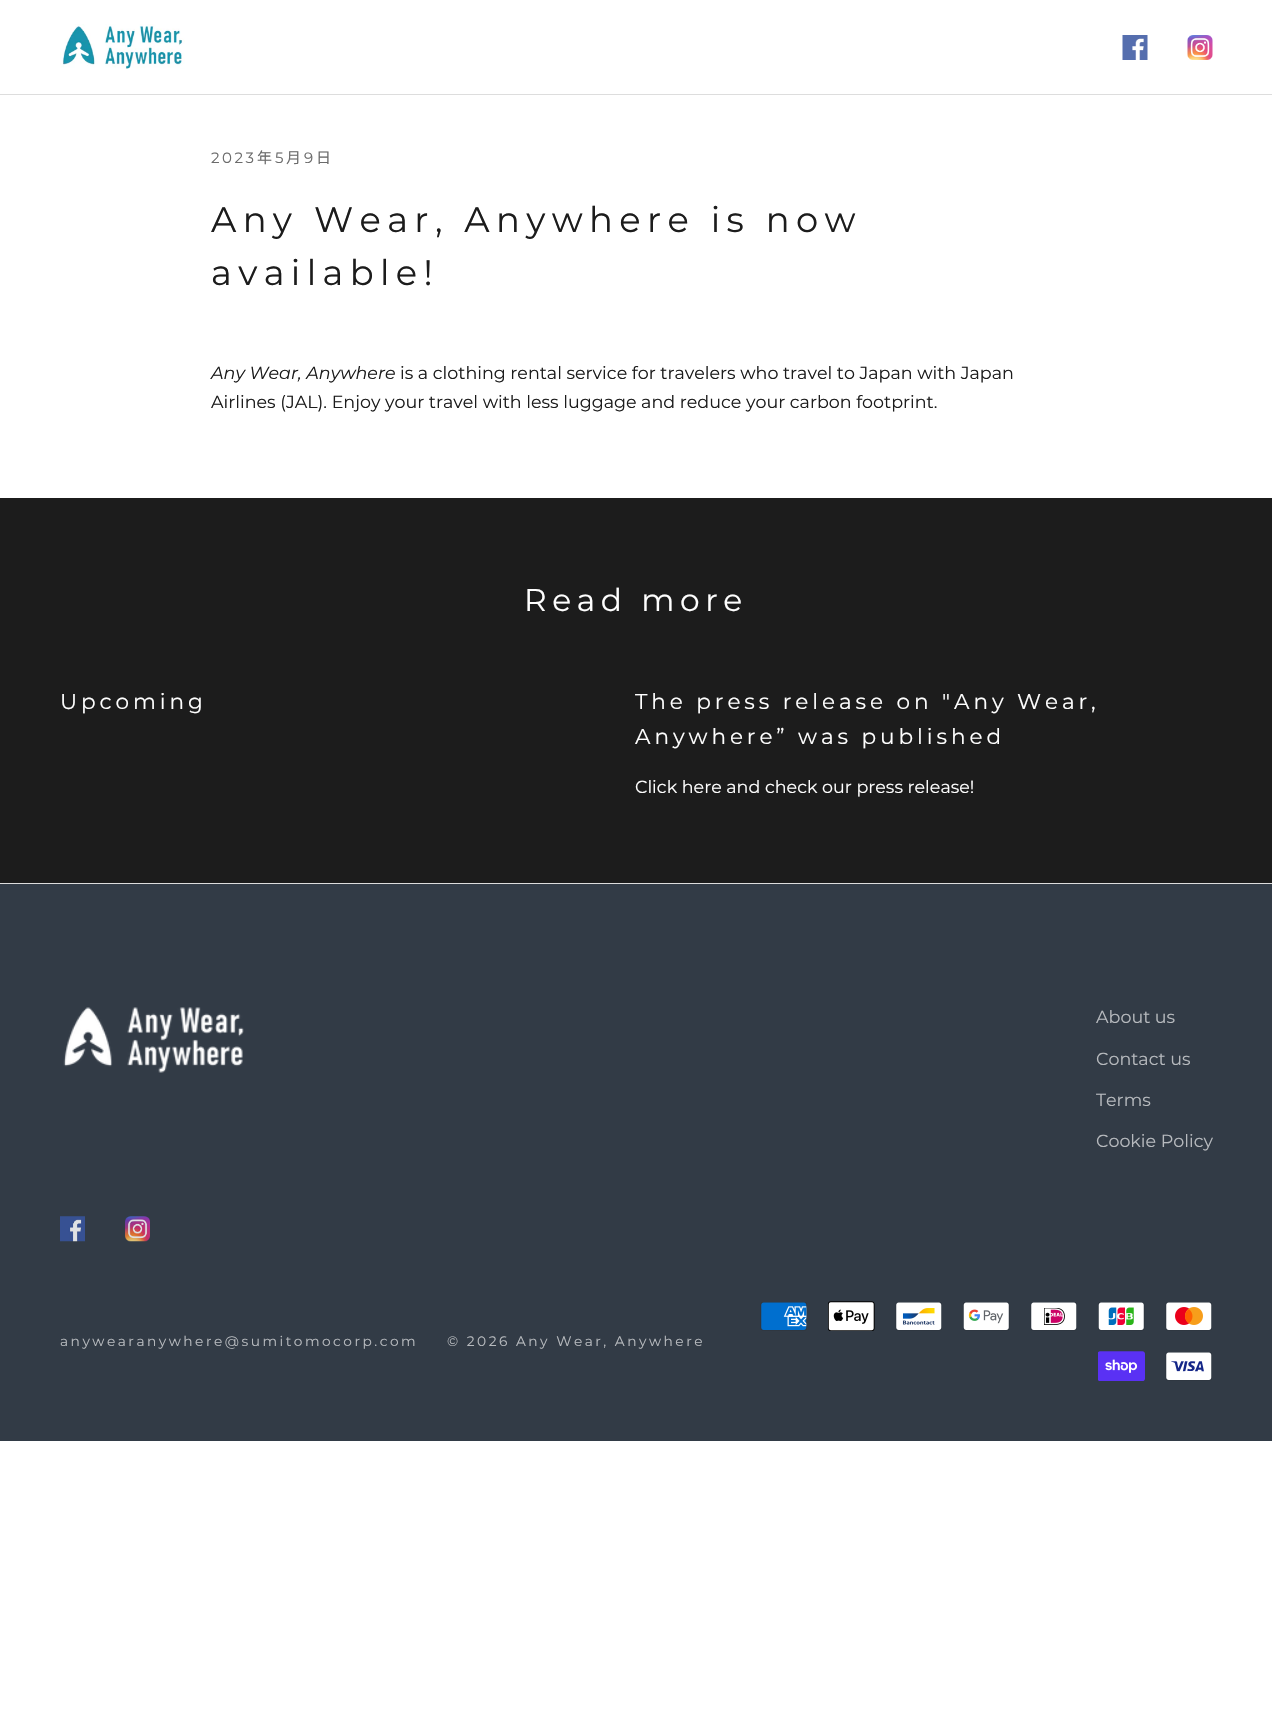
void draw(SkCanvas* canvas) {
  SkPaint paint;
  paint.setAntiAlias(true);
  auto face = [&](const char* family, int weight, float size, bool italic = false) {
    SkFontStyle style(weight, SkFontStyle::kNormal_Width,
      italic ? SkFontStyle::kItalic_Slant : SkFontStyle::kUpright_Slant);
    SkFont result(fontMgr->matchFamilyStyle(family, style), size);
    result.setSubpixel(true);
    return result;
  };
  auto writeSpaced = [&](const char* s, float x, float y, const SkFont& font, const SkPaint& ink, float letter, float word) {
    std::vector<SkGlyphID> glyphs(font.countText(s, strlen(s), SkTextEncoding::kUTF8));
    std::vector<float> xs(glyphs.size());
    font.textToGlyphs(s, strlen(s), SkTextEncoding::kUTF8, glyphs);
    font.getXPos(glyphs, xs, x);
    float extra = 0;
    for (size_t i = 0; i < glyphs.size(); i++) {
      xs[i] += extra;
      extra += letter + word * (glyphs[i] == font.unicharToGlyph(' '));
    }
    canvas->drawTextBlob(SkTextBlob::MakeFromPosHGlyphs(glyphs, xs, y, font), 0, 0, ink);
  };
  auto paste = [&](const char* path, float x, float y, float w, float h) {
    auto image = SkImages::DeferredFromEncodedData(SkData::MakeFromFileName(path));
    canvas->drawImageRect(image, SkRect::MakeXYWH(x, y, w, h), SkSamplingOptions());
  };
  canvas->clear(0xffffffff);
  paint.setColor(0xffdddddd);
  canvas->drawRect(SkRect::MakeXYWH(0, 94, 1272, 1), paint);
  paste("img/1.png", 60, 24, 125, 45);
  paste("img/2.png", 1122, 35, 26, 25);
  paste("img/3.png", 1187, 35, 26, 25);
  {
    const struct { float x, y, w, h; SkColor color; } items[] = {
      {0, 498, 1272, 385, 0xff1c1c1c},
      {0, 883, 1272, 1, 0xffdddddd},
      {0, 884, 1272, 557, 0xff323b46},
    };
    for (auto [x, y, w, h, color] : items) {
      paint.setColor(color);
      canvas->drawRect(SkRect::MakeXYWH(x, y, w, h), paint);
    }
  }
  paste("img/4.png", 63, 1007, 181, 66);
  paste("img/5.png", 60, 1216, 25, 26);
  paste("img/6.png", 125, 1216, 25, 26);
  paste("img/7.png", 760, 1302, 47, 29);
  paste("img/8.png", 828, 1301, 47, 30);
  paste("img/9.png", 895, 1302, 47, 29);
  paste("img/10.png", 963, 1302, 47, 29);
  paste("img/11.png", 1030, 1302, 47, 29);
  paste("img/12.png", 1098, 1302, 47, 29);
  paste("img/13.png", 1165, 1302, 47, 29);
  paste("img/14.png", 1098, 1351, 47, 30);
  paste("img/15.png", 1165, 1352, 47, 29);
  auto f0 = face("Montserrat", 400, 15);
  paint.setColor(0xff6b6b6b);
  writeSpaced("2023", 211, 163, f0, paint, 2.5f, 0);
  auto f1 = face("Noto Sans CJK SC", 400, 15);
  writeSpaced("年", 257, 163, f1, paint, 2.5f, 0);
  writeSpaced("5", 275, 163, f0, paint, 2.5f, 0);
  writeSpaced("月", 286, 163, f1, paint, 2.5f, 0);
  writeSpaced("9", 304, 163, f0, paint, 2.5f, 0);
  writeSpaced("日", 316, 163, f1, paint, 2.5f, 0);
  auto f2 = face("Montserrat", 400, 35.3f);
  paint.setColor(0xff1c1c1c);
  writeSpaced("Any Wear, Anywhere is now", 211, 232, f2, paint, 6.35f, 0);
  writeSpaced("available!", 211, 285, f2, paint, 6.35f, 0);
  auto f3 = face("Montserrat", 400, 17.5f, true);
  canvas->drawString("Any Wear, Anywhere", 211, 379, f3, paint);
  auto f4 = face("Montserrat", 400, 17.5f);
  canvas->drawString("is a clothing rental service for travelers who travel to Japan with Japan", 400, 379, f4, paint);
  canvas->drawString("Airlines (JAL). Enjoy your travel with less luggage and reduce your carbon footprint.", 211, 408, f4, paint);
  auto f5 = face("Montserrat", 400, 31.25f);
  paint.setColor(0xffffffff);
  writeSpaced("Read more", 524, 611, f5, paint, 5.6f, 0);
  auto f6 = face("Montserrat", 400, 21.6f);
  {
    const struct { const char* s; float x, y; } items[] = {
      {"Upcoming", 60, 709},
      {"The press release on \"Any Wear,", 635, 709},
      {"Anywhere” was published", 635, 744},
    };
    for (auto [s, x, y] : items) {
      writeSpaced(s, x, y, f6, paint, 3.9f, 0);
    }
  }
  canvas->drawString("Click here and check our press release!", 635, 793, f4, paint);
  paint.setColor(0xffb7babe);
  {
    const struct { const char* s; float x, y; } items[] = {
      {"About us", 1096, 1023},
      {"Contact us", 1096, 1065},
      {"Terms", 1096, 1106},
      {"Cookie Policy", 1096, 1147},
    };
    for (auto [s, x, y] : items) {
      canvas->drawString(s, x, y, f4, paint);
    }
  }
  auto f7 = face("Montserrat", 400, 13.75f);
  writeSpaced("anywearanywhere@sumitomocorp.com", 60, 1346, f7, paint, 2.5f, 0);
  writeSpaced("© 2026 Any Wear, Anywhere", 447, 1346, f7, paint, 2.5f, 0);
}
